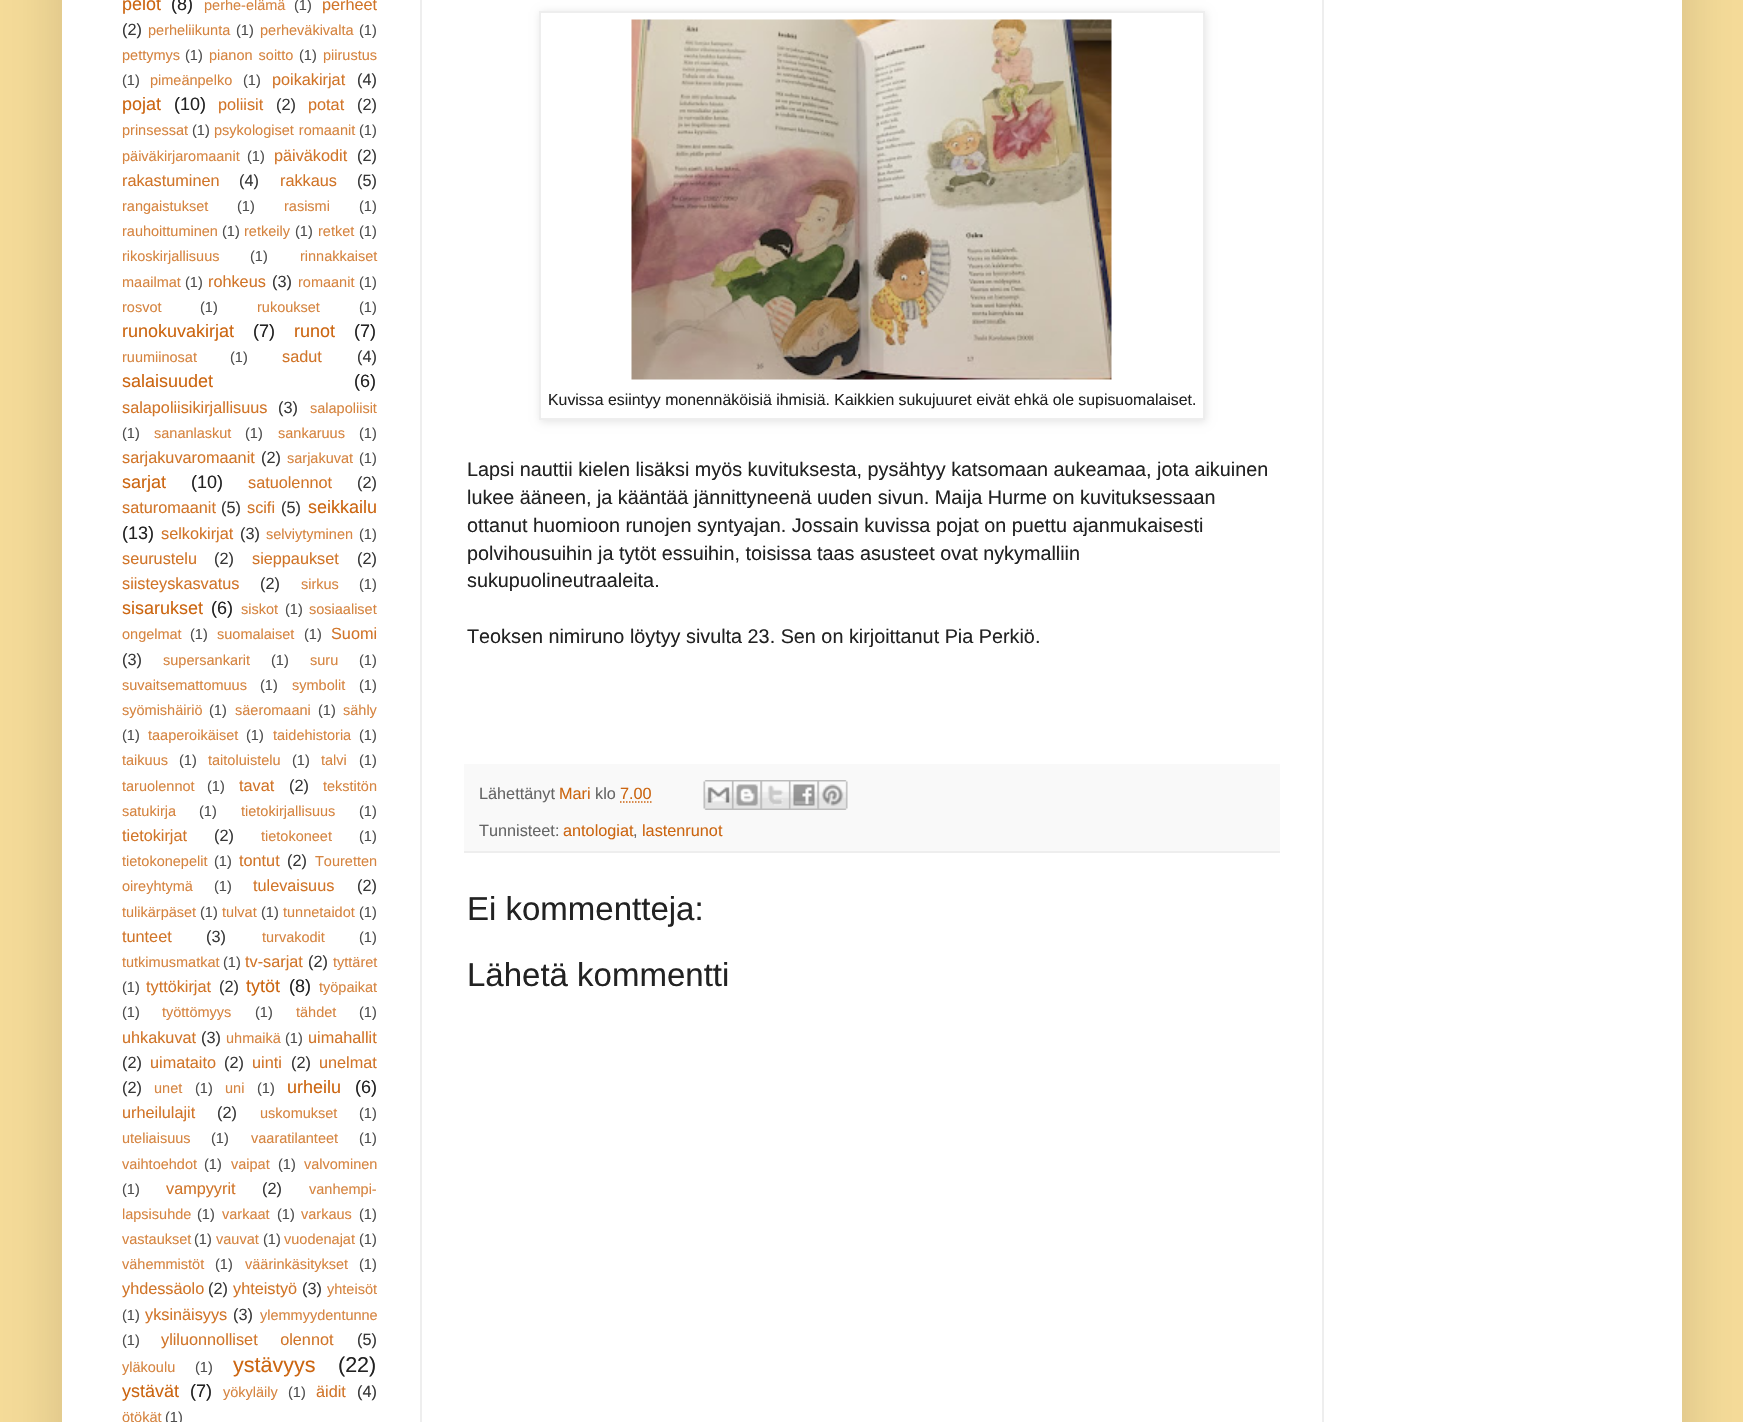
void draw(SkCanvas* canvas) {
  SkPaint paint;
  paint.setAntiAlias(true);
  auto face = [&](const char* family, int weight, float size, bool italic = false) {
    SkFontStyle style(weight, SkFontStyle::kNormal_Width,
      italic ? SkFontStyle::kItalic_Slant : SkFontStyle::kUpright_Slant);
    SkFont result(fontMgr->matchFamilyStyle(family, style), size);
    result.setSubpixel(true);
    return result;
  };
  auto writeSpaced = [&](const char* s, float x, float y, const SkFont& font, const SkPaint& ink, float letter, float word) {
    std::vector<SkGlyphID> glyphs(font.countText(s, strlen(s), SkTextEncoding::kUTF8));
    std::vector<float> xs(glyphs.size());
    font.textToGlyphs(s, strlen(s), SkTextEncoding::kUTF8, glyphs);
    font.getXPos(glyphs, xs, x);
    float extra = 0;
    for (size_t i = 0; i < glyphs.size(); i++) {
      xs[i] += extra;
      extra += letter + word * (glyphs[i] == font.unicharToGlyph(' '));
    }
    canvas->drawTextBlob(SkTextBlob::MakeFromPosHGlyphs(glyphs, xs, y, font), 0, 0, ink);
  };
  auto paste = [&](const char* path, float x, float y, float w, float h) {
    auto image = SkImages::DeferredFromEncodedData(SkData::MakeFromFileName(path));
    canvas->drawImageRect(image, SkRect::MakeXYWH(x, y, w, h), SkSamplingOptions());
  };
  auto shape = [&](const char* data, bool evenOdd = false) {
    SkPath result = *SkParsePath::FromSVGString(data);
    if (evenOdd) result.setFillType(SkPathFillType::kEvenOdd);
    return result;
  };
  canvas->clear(0xfff6dc99);
  paint.setColor(0x26000000);
  paint.setMaskFilter(SkMaskFilter::MakeBlur(kNormal_SkBlurStyle, 30));
  canvas->drawRect(SkRect::MakeXYWH(62, -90, 1620, 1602), paint);
  paint.setMaskFilter(nullptr);
  paint.setColor(0xffffffff);
  canvas->drawRect(SkRect::MakeXYWH(62, 0, 1620, 1422), paint);
  paint.setColor(0x1a000000);
  paint.setMaskFilter(SkMaskFilter::MakeBlur(kNormal_SkBlurStyle, 4));
  canvas->drawRect(SkRect::MakeXYWH(540, 12, 666, 410), paint);
  paint.setMaskFilter(nullptr);
  paint.setColor(0xffffffff);
  canvas->drawRect(SkRect::MakeXYWH(540, 12, 664, 407), paint);
  paint.setStroke(true);
  paint.setStrokeWidth(2);
  paint.setColor(0xffeeeeee);
  canvas->drawRect(SkRect::MakeXYWH(540, 12, 664, 407), paint);
  paste("img/1.png", 631, 19, 481, 361);
  paint.setStroke(false);
  paint.setColor(0xfff9f9f9);
  canvas->drawRect(SkRect::MakeXYWH(464, 764, 816, 87), paint);
  paint.setColor(0xffeeeeee);
  canvas->drawRect(SkRect::MakeXYWH(464, 851, 816, 2), paint);
  paint.setStroke(true);
  paint.setStrokeWidth(1.5f);
  paint.setColor(0xffcc6611);
  paint.setPathEffect(SkDashPathEffect::Make({{1.5f, 1.5f}}, 0));
  canvas->drawPath(shape("M620 802H651.5"), paint);
  paint.setPathEffect(nullptr);
  paste("img/2.png", 703, 780, 29, 30);
  paste("img/3.png", 732, 780, 29, 30);
  paste("img/4.png", 760, 780, 29, 30);
  paste("img/5.png", 789, 780, 29, 30);
  paste("img/6.png", 817, 780, 31, 30);
  paint.setStroke(false);
  paint.setColor(0xffeeeeee);
  canvas->drawRect(SkRect::MakeXYWH(420, 0, 2, 1422), paint);
  canvas->drawRect(SkRect::MakeXYWH(1322, 0, 2, 1422), paint);
  auto f0 = face("Liberation Sans", 400, 18);
  paint.setColor(0xffcc6611);
  canvas->drawString("pelot", 122, 10, f0, paint);
  paint.setColor(0xff222222);
  canvas->drawString("(8)", 171, 10, f0, paint);
  auto f1 = face("Liberation Sans", 400, 14.5f);
  paint.setColor(0xffd68541);
  canvas->drawString("perhe-elämä", 204, 10, f1, paint);
  paint.setColor(0xff4e4e4e);
  canvas->drawString("(1)", 294, 10, f1, paint);
  auto f2 = face("Liberation Sans", 400, 16.25f);
  paint.setColor(0xffd17529);
  canvas->drawString("perheet", 322, 10, f2, paint);
  paint.setColor(0xff383838);
  canvas->drawString("(2)", 122, 35, f2, paint);
  paint.setColor(0xffd68541);
  canvas->drawString("perheliikunta", 148, 35, f1, paint);
  paint.setColor(0xff4e4e4e);
  canvas->drawString("(1)", 236, 35, f1, paint);
  paint.setColor(0xffd68541);
  canvas->drawString("perheväkivalta", 260, 35, f1, paint);
  paint.setColor(0xff4e4e4e);
  canvas->drawString("(1)", 359, 35, f1, paint);
  paint.setColor(0xffd68541);
  canvas->drawString("pettymys", 122, 60, f1, paint);
  paint.setColor(0xff4e4e4e);
  canvas->drawString("(1)", 185, 60, f1, paint);
  paint.setColor(0xffd68541);
  writeSpaced("pianon soitto", 209, 60, f1, paint, 0, 2);
  paint.setColor(0xff4e4e4e);
  canvas->drawString("(1)", 299, 60, f1, paint);
  paint.setColor(0xffd68541);
  canvas->drawString("piirustus", 323, 60, f1, paint);
  paint.setColor(0xff4e4e4e);
  canvas->drawString("(1)", 122, 85, f1, paint);
  paint.setColor(0xffd68541);
  canvas->drawString("pimeänpelko", 150, 85, f1, paint);
  paint.setColor(0xff4e4e4e);
  canvas->drawString("(1)", 243, 85, f1, paint);
  paint.setColor(0xffd17529);
  canvas->drawString("poikakirjat", 272, 85, f2, paint);
  paint.setColor(0xff383838);
  canvas->drawString("(4)", 357, 85, f2, paint);
  paint.setColor(0xffcc6611);
  canvas->drawString("pojat", 122, 110, f0, paint);
  paint.setColor(0xff222222);
  canvas->drawString("(10)", 174, 110, f0, paint);
  paint.setColor(0xffd17529);
  canvas->drawString("poliisit", 218, 110, f2, paint);
  paint.setColor(0xff383838);
  canvas->drawString("(2)", 276, 110, f2, paint);
  paint.setColor(0xffd17529);
  canvas->drawString("potat", 308, 110, f2, paint);
  paint.setColor(0xff383838);
  canvas->drawString("(2)", 357, 110, f2, paint);
  paint.setColor(0xffd68541);
  canvas->drawString("prinsessat", 122, 135, f1, paint);
  paint.setColor(0xff4e4e4e);
  canvas->drawString("(1)", 192, 135, f1, paint);
  paint.setColor(0xffd68541);
  writeSpaced("psykologiset romaanit", 214, 135, f1, paint, 0, 1);
  paint.setColor(0xff4e4e4e);
  canvas->drawString("(1)", 359, 135, f1, paint);
  paint.setColor(0xffd68541);
  canvas->drawString("päiväkirjaromaanit", 122, 161, f1, paint);
  paint.setColor(0xff4e4e4e);
  canvas->drawString("(1)", 247, 161, f1, paint);
  paint.setColor(0xffd17529);
  canvas->drawString("päiväkodit", 274, 161, f2, paint);
  paint.setColor(0xff383838);
  canvas->drawString("(2)", 357, 161, f2, paint);
  paint.setColor(0xffd17529);
  canvas->drawString("rakastuminen", 122, 186, f2, paint);
  paint.setColor(0xff383838);
  canvas->drawString("(4)", 239, 186, f2, paint);
  paint.setColor(0xffd17529);
  canvas->drawString("rakkaus", 280, 186, f2, paint);
  paint.setColor(0xff383838);
  canvas->drawString("(5)", 357, 186, f2, paint);
  paint.setColor(0xffd68541);
  canvas->drawString("rangaistukset", 122, 211, f1, paint);
  paint.setColor(0xff4e4e4e);
  canvas->drawString("(1)", 237, 211, f1, paint);
  paint.setColor(0xffd68541);
  canvas->drawString("rasismi", 284, 211, f1, paint);
  paint.setColor(0xff4e4e4e);
  canvas->drawString("(1)", 359, 211, f1, paint);
  paint.setColor(0xffd68541);
  canvas->drawString("rauhoittuminen", 122, 236, f1, paint);
  paint.setColor(0xff4e4e4e);
  canvas->drawString("(1)", 222, 236, f1, paint);
  paint.setColor(0xffd68541);
  canvas->drawString("retkeily", 244, 236, f1, paint);
  paint.setColor(0xff4e4e4e);
  canvas->drawString("(1)", 295, 236, f1, paint);
  paint.setColor(0xffd68541);
  canvas->drawString("retket", 318, 236, f1, paint);
  paint.setColor(0xff4e4e4e);
  canvas->drawString("(1)", 359, 236, f1, paint);
  paint.setColor(0xffd68541);
  canvas->drawString("rikoskirjallisuus", 122, 261, f1, paint);
  paint.setColor(0xff4e4e4e);
  canvas->drawString("(1)", 250, 261, f1, paint);
  paint.setColor(0xffd68541);
  canvas->drawString("rinnakkaiset", 300, 261, f1, paint);
  canvas->drawString("maailmat", 122, 287, f1, paint);
  paint.setColor(0xff4e4e4e);
  canvas->drawString("(1)", 185, 287, f1, paint);
  paint.setColor(0xffd17529);
  canvas->drawString("rohkeus", 208, 287, f2, paint);
  paint.setColor(0xff383838);
  canvas->drawString("(3)", 272, 287, f2, paint);
  paint.setColor(0xffd68541);
  canvas->drawString("romaanit", 298, 287, f1, paint);
  paint.setColor(0xff4e4e4e);
  canvas->drawString("(1)", 359, 287, f1, paint);
  paint.setColor(0xffd68541);
  canvas->drawString("rosvot", 122, 312, f1, paint);
  paint.setColor(0xff4e4e4e);
  canvas->drawString("(1)", 200, 312, f1, paint);
  paint.setColor(0xffd68541);
  canvas->drawString("rukoukset", 257, 312, f1, paint);
  paint.setColor(0xff4e4e4e);
  canvas->drawString("(1)", 359, 312, f1, paint);
  paint.setColor(0xffcc6611);
  canvas->drawString("runokuvakirjat", 122, 337, f0, paint);
  paint.setColor(0xff222222);
  canvas->drawString("(7)", 253, 337, f0, paint);
  paint.setColor(0xffcc6611);
  canvas->drawString("runot", 294, 337, f0, paint);
  paint.setColor(0xff222222);
  canvas->drawString("(7)", 354, 337, f0, paint);
  paint.setColor(0xffd68541);
  canvas->drawString("ruumiinosat", 122, 362, f1, paint);
  paint.setColor(0xff4e4e4e);
  canvas->drawString("(1)", 230, 362, f1, paint);
  paint.setColor(0xffd17529);
  canvas->drawString("sadut", 282, 362, f2, paint);
  paint.setColor(0xff383838);
  canvas->drawString("(4)", 357, 362, f2, paint);
  paint.setColor(0xffcc6611);
  canvas->drawString("salaisuudet", 122, 387, f0, paint);
  paint.setColor(0xff222222);
  canvas->drawString("(6)", 354, 387, f0, paint);
  paint.setColor(0xffd17529);
  canvas->drawString("salapoliisikirjallisuus", 122, 413, f2, paint);
  paint.setColor(0xff383838);
  canvas->drawString("(3)", 278, 413, f2, paint);
  paint.setColor(0xffd68541);
  canvas->drawString("salapoliisit", 310, 413, f1, paint);
  paint.setColor(0xff4e4e4e);
  canvas->drawString("(1)", 122, 438, f1, paint);
  paint.setColor(0xffd68541);
  canvas->drawString("sananlaskut", 154, 438, f1, paint);
  paint.setColor(0xff4e4e4e);
  canvas->drawString("(1)", 245, 438, f1, paint);
  paint.setColor(0xffd68541);
  canvas->drawString("sankaruus", 278, 438, f1, paint);
  paint.setColor(0xff4e4e4e);
  canvas->drawString("(1)", 359, 438, f1, paint);
  paint.setColor(0xffd17529);
  canvas->drawString("sarjakuvaromaanit", 122, 463, f2, paint);
  paint.setColor(0xff383838);
  canvas->drawString("(2)", 261, 463, f2, paint);
  paint.setColor(0xffd68541);
  canvas->drawString("sarjakuvat", 287, 463, f1, paint);
  paint.setColor(0xff4e4e4e);
  canvas->drawString("(1)", 359, 463, f1, paint);
  paint.setColor(0xffcc6611);
  canvas->drawString("sarjat", 122, 488, f0, paint);
  paint.setColor(0xff222222);
  canvas->drawString("(10)", 191, 488, f0, paint);
  paint.setColor(0xffd17529);
  canvas->drawString("satuolennot", 248, 488, f2, paint);
  paint.setColor(0xff383838);
  canvas->drawString("(2)", 357, 488, f2, paint);
  paint.setColor(0xffd17529);
  canvas->drawString("saturomaanit", 122, 513, f2, paint);
  paint.setColor(0xff383838);
  canvas->drawString("(5)", 221, 513, f2, paint);
  paint.setColor(0xffd17529);
  canvas->drawString("scifi", 247, 513, f2, paint);
  paint.setColor(0xff383838);
  canvas->drawString("(5)", 281, 513, f2, paint);
  paint.setColor(0xffcc6611);
  canvas->drawString("seikkailu", 308, 513, f0, paint);
  paint.setColor(0xff222222);
  canvas->drawString("(13)", 122, 539, f0, paint);
  paint.setColor(0xffd17529);
  canvas->drawString("selkokirjat", 161, 539, f2, paint);
  paint.setColor(0xff383838);
  canvas->drawString("(3)", 240, 539, f2, paint);
  paint.setColor(0xffd68541);
  canvas->drawString("selviytyminen", 266, 539, f1, paint);
  paint.setColor(0xff4e4e4e);
  canvas->drawString("(1)", 359, 539, f1, paint);
  paint.setColor(0xffd17529);
  canvas->drawString("seurustelu", 122, 564, f2, paint);
  paint.setColor(0xff383838);
  canvas->drawString("(2)", 214, 564, f2, paint);
  paint.setColor(0xffd17529);
  canvas->drawString("sieppaukset", 252, 564, f2, paint);
  paint.setColor(0xff383838);
  canvas->drawString("(2)", 357, 564, f2, paint);
  paint.setColor(0xffd17529);
  canvas->drawString("siisteyskasvatus", 122, 589, f2, paint);
  paint.setColor(0xff383838);
  canvas->drawString("(2)", 260, 589, f2, paint);
  paint.setColor(0xffd68541);
  canvas->drawString("sirkus", 301, 589, f1, paint);
  paint.setColor(0xff4e4e4e);
  canvas->drawString("(1)", 359, 589, f1, paint);
  paint.setColor(0xffcc6611);
  canvas->drawString("sisarukset", 122, 614, f0, paint);
  paint.setColor(0xff222222);
  canvas->drawString("(6)", 211, 614, f0, paint);
  paint.setColor(0xffd68541);
  canvas->drawString("siskot", 241, 614, f1, paint);
  paint.setColor(0xff4e4e4e);
  canvas->drawString("(1)", 285, 614, f1, paint);
  paint.setColor(0xffd68541);
  canvas->drawString("sosiaaliset", 309, 614, f1, paint);
  canvas->drawString("ongelmat", 122, 639, f1, paint);
  paint.setColor(0xff4e4e4e);
  canvas->drawString("(1)", 190, 639, f1, paint);
  paint.setColor(0xffd68541);
  canvas->drawString("suomalaiset", 217, 639, f1, paint);
  paint.setColor(0xff4e4e4e);
  canvas->drawString("(1)", 304, 639, f1, paint);
  paint.setColor(0xffd17529);
  canvas->drawString("Suomi", 331, 639, f2, paint);
  paint.setColor(0xff383838);
  canvas->drawString("(3)", 122, 665, f2, paint);
  paint.setColor(0xffd68541);
  canvas->drawString("supersankarit", 163, 665, f1, paint);
  paint.setColor(0xff4e4e4e);
  canvas->drawString("(1)", 271, 665, f1, paint);
  paint.setColor(0xffd68541);
  canvas->drawString("suru", 310, 665, f1, paint);
  paint.setColor(0xff4e4e4e);
  canvas->drawString("(1)", 359, 665, f1, paint);
  paint.setColor(0xffd68541);
  canvas->drawString("suvaitsemattomuus", 122, 690, f1, paint);
  paint.setColor(0xff4e4e4e);
  canvas->drawString("(1)", 260, 690, f1, paint);
  paint.setColor(0xffd68541);
  canvas->drawString("symbolit", 292, 690, f1, paint);
  paint.setColor(0xff4e4e4e);
  canvas->drawString("(1)", 359, 690, f1, paint);
  paint.setColor(0xffd68541);
  canvas->drawString("syömishäiriö", 122, 715, f1, paint);
  paint.setColor(0xff4e4e4e);
  canvas->drawString("(1)", 209, 715, f1, paint);
  paint.setColor(0xffd68541);
  canvas->drawString("säeromaani", 235, 715, f1, paint);
  paint.setColor(0xff4e4e4e);
  canvas->drawString("(1)", 318, 715, f1, paint);
  paint.setColor(0xffd68541);
  canvas->drawString("sähly", 343, 715, f1, paint);
  paint.setColor(0xff4e4e4e);
  canvas->drawString("(1)", 122, 740, f1, paint);
  paint.setColor(0xffd68541);
  canvas->drawString("taaperoikäiset", 148, 740, f1, paint);
  paint.setColor(0xff4e4e4e);
  canvas->drawString("(1)", 246, 740, f1, paint);
  paint.setColor(0xffd68541);
  canvas->drawString("taidehistoria", 273, 740, f1, paint);
  paint.setColor(0xff4e4e4e);
  canvas->drawString("(1)", 359, 740, f1, paint);
  paint.setColor(0xffd68541);
  canvas->drawString("taikuus", 122, 765, f1, paint);
  paint.setColor(0xff4e4e4e);
  canvas->drawString("(1)", 179, 765, f1, paint);
  paint.setColor(0xffd68541);
  canvas->drawString("taitoluistelu", 208, 765, f1, paint);
  paint.setColor(0xff4e4e4e);
  canvas->drawString("(1)", 292, 765, f1, paint);
  paint.setColor(0xffd68541);
  canvas->drawString("talvi", 321, 765, f1, paint);
  paint.setColor(0xff4e4e4e);
  canvas->drawString("(1)", 359, 765, f1, paint);
  paint.setColor(0xffd68541);
  canvas->drawString("taruolennot", 122, 791, f1, paint);
  paint.setColor(0xff4e4e4e);
  canvas->drawString("(1)", 207, 791, f1, paint);
  paint.setColor(0xffd17529);
  canvas->drawString("tavat", 239, 791, f2, paint);
  paint.setColor(0xff383838);
  canvas->drawString("(2)", 289, 791, f2, paint);
  paint.setColor(0xffd68541);
  canvas->drawString("tekstitön", 323, 791, f1, paint);
  canvas->drawString("satukirja", 122, 816, f1, paint);
  paint.setColor(0xff4e4e4e);
  canvas->drawString("(1)", 199, 816, f1, paint);
  paint.setColor(0xffd68541);
  canvas->drawString("tietokirjallisuus", 241, 816, f1, paint);
  paint.setColor(0xff4e4e4e);
  canvas->drawString("(1)", 359, 816, f1, paint);
  paint.setColor(0xffd17529);
  canvas->drawString("tietokirjat", 122, 841, f2, paint);
  paint.setColor(0xff383838);
  canvas->drawString("(2)", 214, 841, f2, paint);
  paint.setColor(0xffd68541);
  canvas->drawString("tietokoneet", 261, 841, f1, paint);
  paint.setColor(0xff4e4e4e);
  canvas->drawString("(1)", 359, 841, f1, paint);
  paint.setColor(0xffd68541);
  canvas->drawString("tietokonepelit", 122, 866, f1, paint);
  paint.setColor(0xff4e4e4e);
  canvas->drawString("(1)", 214, 866, f1, paint);
  paint.setColor(0xffd17529);
  canvas->drawString("tontut", 239, 866, f2, paint);
  paint.setColor(0xff383838);
  canvas->drawString("(2)", 287, 866, f2, paint);
  paint.setColor(0xffd68541);
  canvas->drawString("Touretten", 315, 866, f1, paint);
  canvas->drawString("oireyhtymä", 122, 891, f1, paint);
  paint.setColor(0xff4e4e4e);
  canvas->drawString("(1)", 214, 891, f1, paint);
  paint.setColor(0xffd17529);
  canvas->drawString("tulevaisuus", 253, 891, f2, paint);
  paint.setColor(0xff383838);
  canvas->drawString("(2)", 357, 891, f2, paint);
  paint.setColor(0xffd68541);
  canvas->drawString("tulikärpäset", 122, 917, f1, paint);
  paint.setColor(0xff4e4e4e);
  canvas->drawString("(1)", 200, 917, f1, paint);
  paint.setColor(0xffd68541);
  canvas->drawString("tulvat", 222, 917, f1, paint);
  paint.setColor(0xff4e4e4e);
  canvas->drawString("(1)", 261, 917, f1, paint);
  paint.setColor(0xffd68541);
  canvas->drawString("tunnetaidot", 283, 917, f1, paint);
  paint.setColor(0xff4e4e4e);
  canvas->drawString("(1)", 359, 917, f1, paint);
  paint.setColor(0xffd17529);
  canvas->drawString("tunteet", 122, 942, f2, paint);
  paint.setColor(0xff383838);
  canvas->drawString("(3)", 206, 942, f2, paint);
  paint.setColor(0xffd68541);
  canvas->drawString("turvakodit", 262, 942, f1, paint);
  paint.setColor(0xff4e4e4e);
  canvas->drawString("(1)", 359, 942, f1, paint);
  paint.setColor(0xffd68541);
  canvas->drawString("tutkimusmatkat", 122, 967, f1, paint);
  paint.setColor(0xff4e4e4e);
  canvas->drawString("(1)", 223, 967, f1, paint);
  paint.setColor(0xffd17529);
  canvas->drawString("tv-sarjat", 245, 967, f2, paint);
  paint.setColor(0xff383838);
  canvas->drawString("(2)", 308, 967, f2, paint);
  paint.setColor(0xffd68541);
  canvas->drawString("tyttäret", 333, 967, f1, paint);
  paint.setColor(0xff4e4e4e);
  canvas->drawString("(1)", 122, 992, f1, paint);
  paint.setColor(0xffd17529);
  canvas->drawString("tyttökirjat", 146, 992, f2, paint);
  paint.setColor(0xff383838);
  canvas->drawString("(2)", 219, 992, f2, paint);
  paint.setColor(0xffcc6611);
  canvas->drawString("tytöt", 246, 992, f0, paint);
  paint.setColor(0xff222222);
  canvas->drawString("(8)", 289, 992, f0, paint);
  paint.setColor(0xffd68541);
  canvas->drawString("työpaikat", 319, 992, f1, paint);
  paint.setColor(0xff4e4e4e);
  canvas->drawString("(1)", 122, 1017, f1, paint);
  paint.setColor(0xffd68541);
  canvas->drawString("työttömyys", 162, 1017, f1, paint);
  paint.setColor(0xff4e4e4e);
  canvas->drawString("(1)", 255, 1017, f1, paint);
  paint.setColor(0xffd68541);
  canvas->drawString("tähdet", 296, 1017, f1, paint);
  paint.setColor(0xff4e4e4e);
  canvas->drawString("(1)", 359, 1017, f1, paint);
  paint.setColor(0xffd17529);
  canvas->drawString("uhkakuvat", 122, 1043, f2, paint);
  paint.setColor(0xff383838);
  canvas->drawString("(3)", 201, 1043, f2, paint);
  paint.setColor(0xffd68541);
  canvas->drawString("uhmaikä", 226, 1043, f1, paint);
  paint.setColor(0xff4e4e4e);
  canvas->drawString("(1)", 285, 1043, f1, paint);
  paint.setColor(0xffd17529);
  canvas->drawString("uimahallit", 308, 1043, f2, paint);
  paint.setColor(0xff383838);
  canvas->drawString("(2)", 122, 1068, f2, paint);
  paint.setColor(0xffd17529);
  canvas->drawString("uimataito", 150, 1068, f2, paint);
  paint.setColor(0xff383838);
  canvas->drawString("(2)", 224, 1068, f2, paint);
  paint.setColor(0xffd17529);
  canvas->drawString("uinti", 252, 1068, f2, paint);
  paint.setColor(0xff383838);
  canvas->drawString("(2)", 291, 1068, f2, paint);
  paint.setColor(0xffd17529);
  canvas->drawString("unelmat", 319, 1068, f2, paint);
  paint.setColor(0xff383838);
  canvas->drawString("(2)", 122, 1093, f2, paint);
  paint.setColor(0xffd68541);
  canvas->drawString("unet", 154, 1093, f1, paint);
  paint.setColor(0xff4e4e4e);
  canvas->drawString("(1)", 195, 1093, f1, paint);
  paint.setColor(0xffd68541);
  canvas->drawString("uni", 225, 1093, f1, paint);
  paint.setColor(0xff4e4e4e);
  canvas->drawString("(1)", 257, 1093, f1, paint);
  paint.setColor(0xffcc6611);
  canvas->drawString("urheilu", 287, 1093, f0, paint);
  paint.setColor(0xff222222);
  canvas->drawString("(6)", 355, 1093, f0, paint);
  paint.setColor(0xffd17529);
  canvas->drawString("urheilulajit", 122, 1118, f2, paint);
  paint.setColor(0xff383838);
  canvas->drawString("(2)", 217, 1118, f2, paint);
  paint.setColor(0xffd68541);
  canvas->drawString("uskomukset", 260, 1118, f1, paint);
  paint.setColor(0xff4e4e4e);
  canvas->drawString("(1)", 359, 1118, f1, paint);
  paint.setColor(0xffd68541);
  canvas->drawString("uteliaisuus", 122, 1143, f1, paint);
  paint.setColor(0xff4e4e4e);
  canvas->drawString("(1)", 211, 1143, f1, paint);
  paint.setColor(0xffd68541);
  canvas->drawString("vaaratilanteet", 251, 1143, f1, paint);
  paint.setColor(0xff4e4e4e);
  canvas->drawString("(1)", 359, 1143, f1, paint);
  paint.setColor(0xffd68541);
  canvas->drawString("vaihtoehdot", 122, 1169, f1, paint);
  paint.setColor(0xff4e4e4e);
  canvas->drawString("(1)", 204, 1169, f1, paint);
  paint.setColor(0xffd68541);
  canvas->drawString("vaipat", 231, 1169, f1, paint);
  paint.setColor(0xff4e4e4e);
  canvas->drawString("(1)", 278, 1169, f1, paint);
  paint.setColor(0xffd68541);
  canvas->drawString("valvominen", 304, 1169, f1, paint);
  paint.setColor(0xff4e4e4e);
  canvas->drawString("(1)", 122, 1194, f1, paint);
  paint.setColor(0xffd17529);
  canvas->drawString("vampyyrit", 166, 1194, f2, paint);
  paint.setColor(0xff383838);
  canvas->drawString("(2)", 262, 1194, f2, paint);
  paint.setColor(0xffd68541);
  canvas->drawString("vanhempi-", 309, 1194, f1, paint);
  canvas->drawString("lapsisuhde", 122, 1219, f1, paint);
  paint.setColor(0xff4e4e4e);
  canvas->drawString("(1)", 197, 1219, f1, paint);
  paint.setColor(0xffd68541);
  canvas->drawString("varkaat", 222, 1219, f1, paint);
  paint.setColor(0xff4e4e4e);
  canvas->drawString("(1)", 277, 1219, f1, paint);
  paint.setColor(0xffd68541);
  canvas->drawString("varkaus", 301, 1219, f1, paint);
  paint.setColor(0xff4e4e4e);
  canvas->drawString("(1)", 359, 1219, f1, paint);
  paint.setColor(0xffd68541);
  canvas->drawString("vastaukset", 122, 1244, f1, paint);
  paint.setColor(0xff4e4e4e);
  canvas->drawString("(1)", 194, 1244, f1, paint);
  paint.setColor(0xffd68541);
  canvas->drawString("vauvat", 216, 1244, f1, paint);
  paint.setColor(0xff4e4e4e);
  canvas->drawString("(1)", 263, 1244, f1, paint);
  paint.setColor(0xffd68541);
  canvas->drawString("vuodenajat", 284, 1244, f1, paint);
  paint.setColor(0xff4e4e4e);
  canvas->drawString("(1)", 359, 1244, f1, paint);
  paint.setColor(0xffd68541);
  canvas->drawString("vähemmistöt", 122, 1269, f1, paint);
  paint.setColor(0xff4e4e4e);
  canvas->drawString("(1)", 215, 1269, f1, paint);
  paint.setColor(0xffd68541);
  canvas->drawString("väärinkäsitykset", 245, 1269, f1, paint);
  paint.setColor(0xff4e4e4e);
  canvas->drawString("(1)", 359, 1269, f1, paint);
  paint.setColor(0xffd17529);
  canvas->drawString("yhdessäolo", 122, 1294, f2, paint);
  paint.setColor(0xff383838);
  canvas->drawString("(2)", 208, 1294, f2, paint);
  paint.setColor(0xffd17529);
  canvas->drawString("yhteistyö", 233, 1294, f2, paint);
  paint.setColor(0xff383838);
  canvas->drawString("(3)", 302, 1294, f2, paint);
  paint.setColor(0xffd68541);
  canvas->drawString("yhteisöt", 327, 1294, f1, paint);
  paint.setColor(0xff4e4e4e);
  canvas->drawString("(1)", 122, 1320, f1, paint);
  paint.setColor(0xffd17529);
  canvas->drawString("yksinäisyys", 145, 1320, f2, paint);
  paint.setColor(0xff383838);
  canvas->drawString("(3)", 233, 1320, f2, paint);
  paint.setColor(0xffd68541);
  canvas->drawString("ylemmyydentunne", 260, 1320, f1, paint);
  paint.setColor(0xff4e4e4e);
  canvas->drawString("(1)", 122, 1345, f1, paint);
  paint.setColor(0xffd17529);
  writeSpaced("yliluonnolliset olennot", 161, 1345, f2, paint, 0, 18);
  paint.setColor(0xff383838);
  canvas->drawString("(5)", 357, 1345, f2, paint);
  paint.setColor(0xffd68541);
  canvas->drawString("yläkoulu", 122, 1372, f1, paint);
  paint.setColor(0xff4e4e4e);
  canvas->drawString("(1)", 195, 1372, f1, paint);
  auto f3 = face("Liberation Sans", 400, 21.5f);
  paint.setColor(0xffcc6611);
  canvas->drawString("ystävyys", 233, 1372, f3, paint);
  paint.setColor(0xff222222);
  canvas->drawString("(22)", 338, 1372, f3, paint);
  paint.setColor(0xffcc6611);
  canvas->drawString("ystävät", 122, 1397, f0, paint);
  paint.setColor(0xff222222);
  canvas->drawString("(7)", 190, 1397, f0, paint);
  paint.setColor(0xffd68541);
  canvas->drawString("yökyläily", 223, 1397, f1, paint);
  paint.setColor(0xff4e4e4e);
  canvas->drawString("(1)", 288, 1397, f1, paint);
  paint.setColor(0xffd17529);
  canvas->drawString("äidit", 316, 1397, f2, paint);
  paint.setColor(0xff383838);
  canvas->drawString("(4)", 357, 1397, f2, paint);
  paint.setColor(0xffd68541);
  canvas->drawString("ötökät", 122, 1422, f1, paint);
  paint.setColor(0xff4e4e4e);
  canvas->drawString("(1)", 165, 1422, f1, paint);
  auto f4 = face("Liberation Sans", 400, 15.85f);
  paint.setColor(0xff222222);
  canvas->drawString("Kuvissa esiintyy monennäköisiä ihmisiä. Kaikkien sukujuuret eivät ehkä ole supisuomalaiset.", 548, 405, f4, paint);
  auto f5 = face("Liberation Sans", 400, 19.8f);
  {
    const struct { const char* s; float x, y; } items[] = {
      {"Lapsi nauttii kielen lisäksi myös kuvituksesta, pysähtyy katsomaan aukeamaa, jota aikuinen", 467, 476},
      {"lukee ääneen, ja kääntää jännittyneenä uuden sivun. Maija Hurme on kuvituksessaan", 467, 504},
      {"ottanut huomioon runojen syntyajan. Jossain kuvissa pojat on puettu ajanmukaisesti", 467, 532},
      {"polvihousuihin ja tytöt essuihin, toisissa taas asusteet ovat nykymalliin", 467, 560},
      {"sukupuolineutraaleita.", 467, 587},
      {"Teoksen nimiruno löytyy sivulta 23. Sen on kirjoittanut Pia Perkiö.", 467, 643},
    };
    for (auto [s, x, y] : items) {
      canvas->drawString(s, x, y, f5, paint);
    }
  }
  paint.setColor(0xff666666);
  canvas->drawString("Lähettänyt", 479, 799, f2, paint);
  paint.setColor(0xffcc6611);
  canvas->drawString("Mari", 559, 799, f2, paint);
  paint.setColor(0xff666666);
  canvas->drawString("klo", 595, 799, f2, paint);
  paint.setColor(0xffcc6611);
  canvas->drawString("7.00", 620, 799, f2, paint);
  paint.setColor(0xff666666);
  canvas->drawString("Tunnisteet:", 479, 836, f2, paint);
  paint.setColor(0xffcc6611);
  canvas->drawString("antologiat", 563, 836, f2, paint);
  paint.setColor(0xff666666);
  canvas->drawString(",", 633, 836, f2, paint);
  paint.setColor(0xffcc6611);
  canvas->drawString("lastenrunot", 642, 836, f2, paint);
  auto f6 = face("Liberation Sans", 400, 33);
  paint.setColor(0xff222222);
  canvas->drawString("Ei kommentteja:", 467, 920, f6, paint);
  canvas->drawString("Lähetä kommentti", 467, 986, f6, paint);
}
